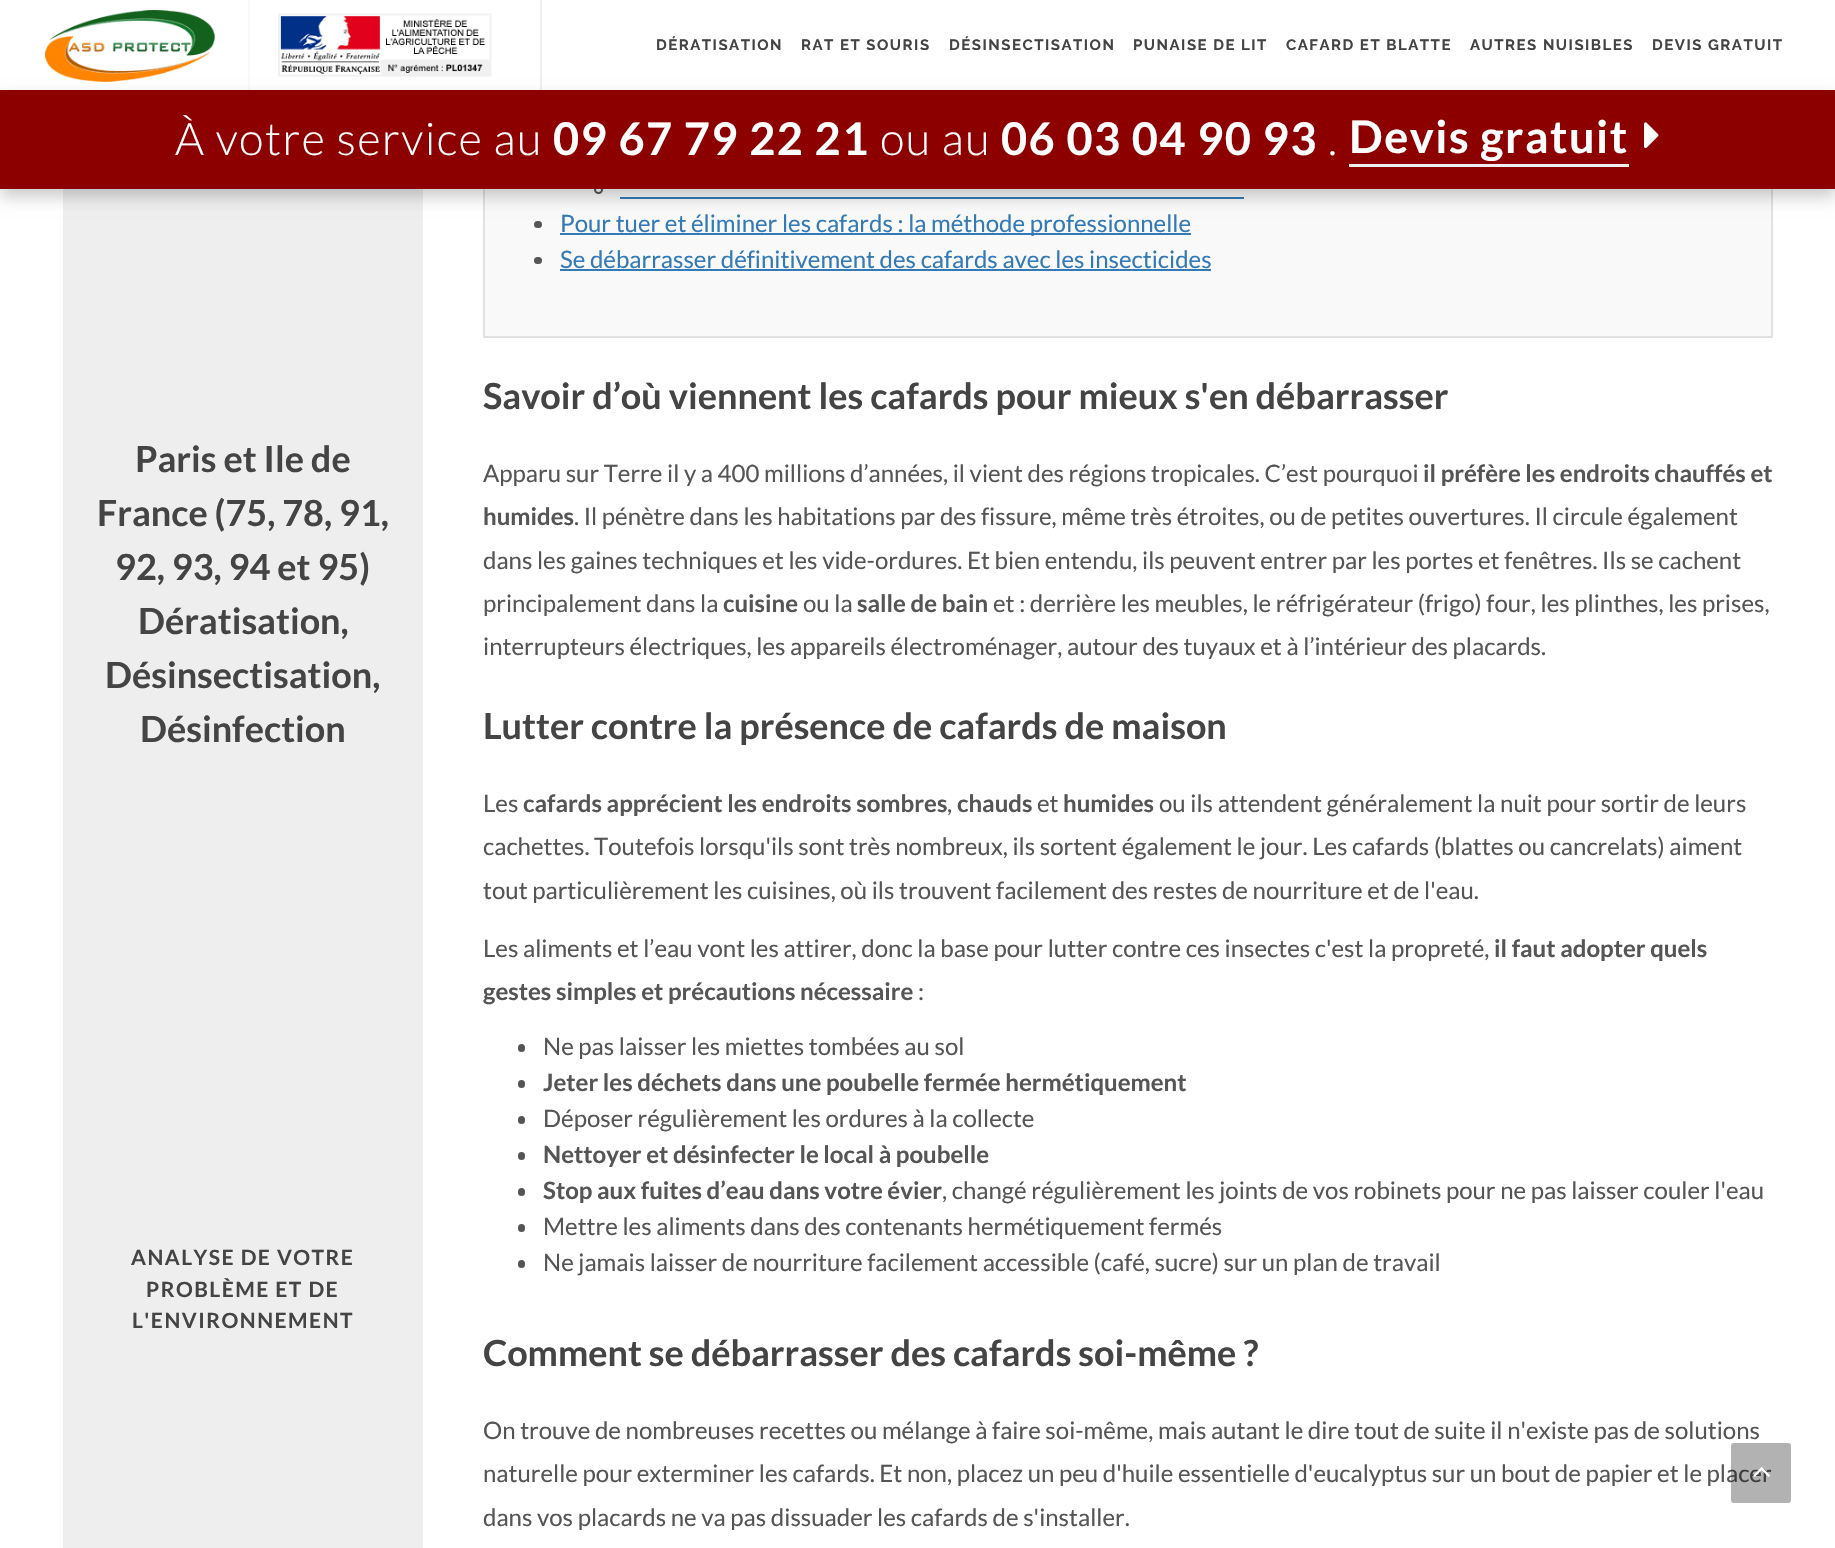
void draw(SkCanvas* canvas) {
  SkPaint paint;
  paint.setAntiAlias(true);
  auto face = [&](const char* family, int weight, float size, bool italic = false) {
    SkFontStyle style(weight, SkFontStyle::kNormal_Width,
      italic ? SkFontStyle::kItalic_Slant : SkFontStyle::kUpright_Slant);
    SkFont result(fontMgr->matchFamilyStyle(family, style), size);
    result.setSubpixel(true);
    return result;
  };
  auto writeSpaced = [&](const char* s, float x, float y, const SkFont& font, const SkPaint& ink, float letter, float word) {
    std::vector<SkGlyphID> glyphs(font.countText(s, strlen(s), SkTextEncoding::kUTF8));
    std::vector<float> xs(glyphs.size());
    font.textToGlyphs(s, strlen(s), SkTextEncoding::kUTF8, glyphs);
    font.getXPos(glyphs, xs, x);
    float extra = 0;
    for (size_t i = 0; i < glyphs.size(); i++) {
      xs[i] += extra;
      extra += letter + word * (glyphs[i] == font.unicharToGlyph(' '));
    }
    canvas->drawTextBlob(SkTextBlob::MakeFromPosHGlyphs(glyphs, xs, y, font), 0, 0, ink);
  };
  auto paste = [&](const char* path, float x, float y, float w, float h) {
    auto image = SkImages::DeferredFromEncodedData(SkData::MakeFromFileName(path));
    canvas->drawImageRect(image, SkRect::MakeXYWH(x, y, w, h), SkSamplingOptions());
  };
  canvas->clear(0xffffffff);
  paint.setColor(0xfff9f9f9);
  canvas->drawRect(SkRect::MakeXYWH(485, 189, 1286, 147), paint);
  paint.setStroke(true);
  paint.setStrokeWidth(2);
  paint.setColor(0xffe1e1e1);
  canvas->drawRect(SkRect::MakeXYWH(484, -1, 1288, 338), paint);
  paint.setStroke(false);
  paint.setColor(0xffffffff);
  canvas->drawRect(SkRect::MakeXYWH(483, 0, 1290, 90), paint);
  paint.setColor(0xffeeeeee);
  canvas->drawRect(SkRect::MakeXYWH(540, 0, 2, 90), paint);
  paste("img/1.png", 45, 0, 447, 90);
  canvas->drawRect(SkRect::MakeXYWH(63, 189, 360, 1359), paint);
  paint.setStroke(true);
  paint.setColor(0xff555555);
  canvas->drawCircle(598.5f, 189.5f, 3.5f, paint);
  paint.setStroke(false);
  paint.setColor(0xff337ab7);
  canvas->drawRect(SkRect::MakeXYWH(620, 197, 624, 2), paint);
  paint.setColor(0x33000000);
  paint.setMaskFilter(SkMaskFilter::MakeBlur(kNormal_SkBlurStyle, 7.5f));
  canvas->drawRect(SkRect::MakeXYWH(0, 98, 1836, 99), paint);
  paint.setMaskFilter(nullptr);
  paint.setColor(0xff8c0000);
  canvas->drawRect(SkRect::MakeXYWH(0, 90, 1835, 99), paint);
  paint.setColor(0xffeeeeee);
  canvas->drawRect(SkRect::MakeXYWH(1349, 164, 280, 3), paint);
  paste("img/2.png", 1644, 122, 15, 27);
  paint.setColor(0xff555555);
  canvas->drawRoundRect(SkRect::MakeXYWH(534, 221, 8, 7), 3.5f, 3.5f, paint);
  paint.setColor(0xff337ab7);
  canvas->drawRect(SkRect::MakeXYWH(560, 233, 631, 2), paint);
  paint.setColor(0xff555555);
  canvas->drawRoundRect(SkRect::MakeXYWH(534, 257, 8, 7), 3.5f, 3.5f, paint);
  paint.setColor(0xff337ab7);
  canvas->drawRect(SkRect::MakeXYWH(560, 269, 651, 2), paint);
  paint.setColor(0xff555555);
  canvas->drawRoundRect(SkRect::MakeXYWH(518, 1044, 7, 8), 3.5f, 3.5f, paint);
  canvas->drawRoundRect(SkRect::MakeXYWH(518, 1080, 7, 8), 3.5f, 3.5f, paint);
  canvas->drawRoundRect(SkRect::MakeXYWH(518, 1116, 7, 8), 3.5f, 3.5f, paint);
  canvas->drawRoundRect(SkRect::MakeXYWH(518, 1152, 7, 8), 3.5f, 3.5f, paint);
  canvas->drawRoundRect(SkRect::MakeXYWH(518, 1188, 7, 8), 3.5f, 3.5f, paint);
  canvas->drawRoundRect(SkRect::MakeXYWH(518, 1224, 7, 8), 3.5f, 3.5f, paint);
  canvas->drawRoundRect(SkRect::MakeXYWH(518, 1260, 7, 8), 3.5f, 3.5f, paint);
  auto f0 = face("Raleway", 700, 15);
  paint.setColor(0xff444444);
  {
    const struct { const char* s; float x, y; } items[] = {
      {"DÉRATISATION", 656, 50},
      {"RAT ET SOURIS", 801, 50},
      {"DÉSINSECTISATION", 949, 50},
      {"PUNAISE DE LIT", 1133, 50},
      {"CAFARD ET BLATTE", 1286, 50},
      {"AUTRES NUISIBLES", 1470, 50},
      {"DEVIS GRATUIT", 1652, 50},
    };
    for (auto [s, x, y] : items) {
      writeSpaced(s, x, y, f0, paint, 1.5f, 0);
    }
  }
  auto f1 = face("Lato", 300, 45);
  paint.setColor(0xffffffff);
  writeSpaced("À votre service au", 175, 155, f1, paint, 1.5f, 0);
  auto f2 = face("Lato", 700, 45);
  writeSpaced("09 67 79 22 21", 553, 155, f2, paint, 1.5f, 0);
  writeSpaced("ou au", 880, 155, f1, paint, 1.5f, 0);
  writeSpaced("06 03 04 90 93", 1001, 155, f2, paint, 1.5f, 0);
  writeSpaced(".", 1328, 155, f1, paint, 1.5f, 0);
  writeSpaced("Devis gratuit", 1349, 153, f2, paint, 1.5f, 0);
  auto f3 = face("Lato", 700, 36);
  paint.setColor(0xff444444);
  {
    const struct { const char* s; float x, y; } items[] = {
      {"Paris et Ile de", 135, 472},
      {"France (75, 78, 91,", 97, 526},
      {"92, 93, 94 et 95)", 115, 580},
      {"Dératisation,", 138, 634},
      {"Désinsectisation,", 105, 688},
      {"Désinfection", 140, 742},
    };
    for (auto [s, x, y] : items) {
      canvas->drawString(s, x, y, f3, paint);
    }
  }
  auto f4 = face("Lato", 700, 21);
  {
    const struct { const char* s; float x, y; } items[] = {
      {"ANALYSE DE VOTRE", 131, 1265},
      {"PROBLÈME ET DE", 146, 1297},
      {"L'ENVIRONNEMENT", 132, 1328},
    };
    for (auto [s, x, y] : items) {
      writeSpaced(s, x, y, f4, paint, 1.5f, 0);
    }
  }
  auto f5 = face("Lato", 400, 24);
  paint.setColor(0xff337ab7);
  canvas->drawString("Pour tuer et éliminer les cafards : la méthode professionnelle", 560, 232, f5, paint);
  canvas->drawString("Se débarrasser définitivement des cafards avec les insecticides", 560, 268, f5, paint);
  paint.setColor(0xff444444);
  canvas->drawString("Savoir d’où viennent les cafards pour mieux s'en débarrasser", 483, 409, f3, paint);
  paint.setColor(0xff555555);
  canvas->drawString("Apparu sur Terre il y a 400 millions d’années, il vient des régions tropicales. C’est pourquoi", 483, 482, f5, paint);
  auto f6 = face("Lato", 700, 24);
  canvas->drawString("il préfère les endroits chauffés et", 1423, 482, f6, paint);
  canvas->drawString("humides", 483, 525, f6, paint);
  {
    const struct { const char* s; float x, y; } items[] = {
      {". Il pénètre dans les habitations par des fissure, même très étroites, ou de petites ouvertures. Il circule également", 574, 525},
      {"dans les gaines techniques et les vide-ordures. Et bien entendu, ils peuvent entrer par les portes et fenêtres. Ils se cachent", 483, 569},
      {"principalement dans la", 483, 612},
    };
    for (auto [s, x, y] : items) {
      canvas->drawString(s, x, y, f5, paint);
    }
  }
  canvas->drawString("cuisine", 723, 612, f6, paint);
  canvas->drawString("ou la", 803, 612, f5, paint);
  canvas->drawString("salle de bain", 857, 612, f6, paint);
  canvas->drawString("et : derrière les meubles, le réfrigérateur (frigo) four, les plinthes, les prises,", 993, 612, f5, paint);
  canvas->drawString("interrupteurs électriques, les appareils électroménager, autour des tuyaux et à l’intérieur des placards.", 483, 655, f5, paint);
  paint.setColor(0xff444444);
  canvas->drawString("Lutter contre la présence de cafards de maison", 483, 739, f3, paint);
  paint.setColor(0xff555555);
  canvas->drawString("Les", 483, 812, f5, paint);
  canvas->drawString("cafards apprécient les endroits sombres", 523, 812, f6, paint);
  canvas->drawString(",", 947, 812, f5, paint);
  canvas->drawString("chauds", 957, 812, f6, paint);
  canvas->drawString("et", 1037, 812, f5, paint);
  canvas->drawString("humides", 1063, 812, f6, paint);
  {
    const struct { const char* s; float x, y; } items[] = {
      {"ou ils attendent généralement la nuit pour sortir de leurs", 1159, 812},
      {"cachettes. Toutefois lorsqu'ils sont très nombreux, ils sortent également le jour. Les cafards (blattes ou cancrelats) aiment", 483, 855},
      {"tout particulièrement les cuisines, où ils trouvent facilement des restes de nourriture et de l'eau.", 483, 899},
      {"Les aliments et l’eau vont les attirer, donc la base pour lutter contre ces insectes c'est la propreté,", 483, 957},
    };
    for (auto [s, x, y] : items) {
      canvas->drawString(s, x, y, f5, paint);
    }
  }
  canvas->drawString("il faut adopter quels", 1494, 957, f6, paint);
  canvas->drawString("gestes simples et précautions nécessaire", 483, 1000, f6, paint);
  canvas->drawString(":", 918, 1000, f5, paint);
  canvas->drawString("Ne pas laisser les miettes tombées au sol", 543, 1055, f5, paint);
  canvas->drawString("Jeter les déchets dans une poubelle fermée hermétiquement", 543, 1091, f6, paint);
  canvas->drawString("Déposer régulièrement les ordures à la collecte", 543, 1127, f5, paint);
  canvas->drawString("Nettoyer et désinfecter le local à poubelle", 543, 1163, f6, paint);
  canvas->drawString("Stop aux fuites d’eau dans votre évier", 543, 1199, f6, paint);
  {
    const struct { const char* s; float x, y; } items[] = {
      {", changé régulièrement les joints de vos robinets pour ne pas laisser couler l'eau", 942, 1199},
      {"Mettre les aliments dans des contenants hermétiquement fermés", 543, 1235},
      {"Ne jamais laisser de nourriture facilement accessible (café, sucre) sur un plan de travail", 543, 1271},
    };
    for (auto [s, x, y] : items) {
      canvas->drawString(s, x, y, f5, paint);
    }
  }
  paint.setColor(0xff444444);
  canvas->drawString("Comment se débarrasser des cafards soi-même ?", 483, 1366, f3, paint);
  paint.setColor(0xff555555);
  {
    const struct { const char* s; float x, y; } items[] = {
      {"On trouve de nombreuses recettes ou mélange à faire soi-même, mais autant le dire tout de suite il n'existe pas de solutions", 483, 1439},
      {"naturelle pour exterminer les cafards. Et non, placez un peu d'huile essentielle d'eucalyptus sur un bout de papier et le placer", 483, 1482},
      {"dans vos placards ne va pas dissuader les cafards de s'installer.", 483, 1526},
    };
    for (auto [s, x, y] : items) {
      canvas->drawString(s, x, y, f5, paint);
    }
  }
  paint.setColor(0x4d000000);
  canvas->drawRoundRect(SkRect::MakeXYWH(1731, 1443, 60, 60), 3, 3, paint);
  paste("img/3.png", 1753, 1467, 17, 10);
}
